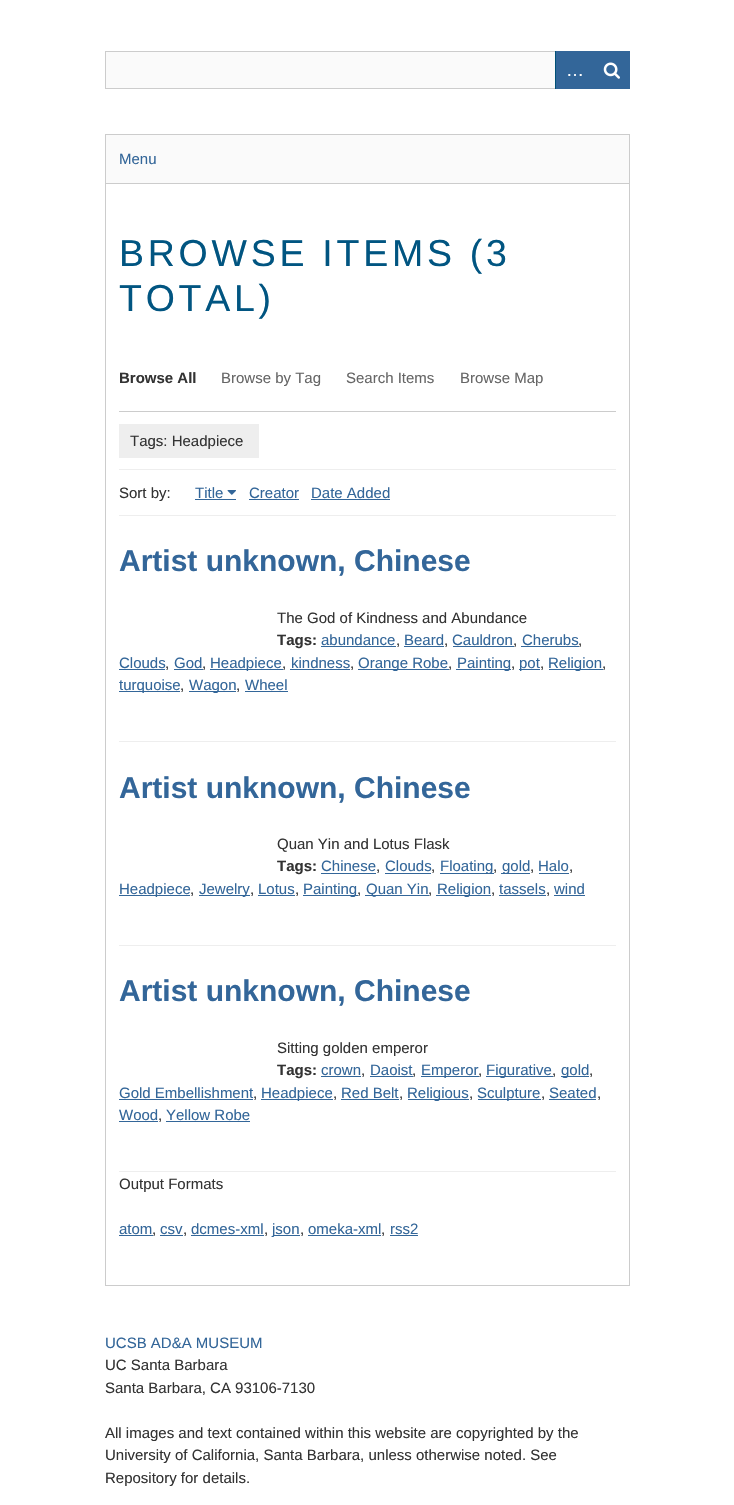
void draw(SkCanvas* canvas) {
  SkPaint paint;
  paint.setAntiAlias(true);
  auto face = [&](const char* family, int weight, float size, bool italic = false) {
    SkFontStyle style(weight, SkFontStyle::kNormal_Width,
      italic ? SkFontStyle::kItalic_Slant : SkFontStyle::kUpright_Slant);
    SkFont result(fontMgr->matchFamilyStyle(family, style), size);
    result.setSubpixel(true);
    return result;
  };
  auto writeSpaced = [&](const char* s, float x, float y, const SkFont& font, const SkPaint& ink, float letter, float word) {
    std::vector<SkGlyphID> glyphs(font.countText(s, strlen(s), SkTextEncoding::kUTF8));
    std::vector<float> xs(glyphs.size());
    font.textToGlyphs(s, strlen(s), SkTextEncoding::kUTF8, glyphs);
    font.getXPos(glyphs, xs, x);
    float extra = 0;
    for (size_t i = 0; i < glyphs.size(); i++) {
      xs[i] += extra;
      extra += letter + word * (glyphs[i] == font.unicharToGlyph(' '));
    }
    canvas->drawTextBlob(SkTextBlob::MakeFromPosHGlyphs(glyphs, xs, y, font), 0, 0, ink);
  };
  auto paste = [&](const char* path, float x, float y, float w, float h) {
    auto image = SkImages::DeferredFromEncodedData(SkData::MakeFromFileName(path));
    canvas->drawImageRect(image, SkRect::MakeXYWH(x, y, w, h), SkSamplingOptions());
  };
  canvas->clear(0xffffffff);
  paint.setColor(0xfffafafa);
  canvas->drawRect(SkRect::MakeXYWH(106, 52, 449, 36), paint);
  paint.setStroke(true);
  paint.setStrokeWidth(1);
  paint.setColor(0xffcccccc);
  canvas->drawRect(SkRect::MakeXYWH(105.5f, 51.5f, 524, 37), paint);
  paint.setStroke(false);
  paint.setColor(0xff005177);
  canvas->drawRect(SkRect::MakeXYWH(555, 51, 1, 38), paint);
  paint.setColor(0xff336699);
  canvas->drawRect(SkRect::MakeXYWH(556, 51, 74, 38), paint);
  paste("img/1.png", 603, 62, 17, 17);
  {
    const struct { float x, y, w, h; SkColor color; } items[] = {
      {106, 135, 523, 48, 0xfffafafa},
      {105, 134, 525, 1, 0xffcccccc},
      {629, 134, 1, 49, 0xffcccccc},
      {105, 134, 1, 49, 0xffcccccc},
    };
    for (auto [x, y, w, h, color] : items) {
      paint.setColor(color);
      canvas->drawRect(SkRect::MakeXYWH(x, y, w, h), paint);
    }
  }
  paint.setStroke(true);
  canvas->drawRect(SkRect::MakeXYWH(105.5f, 183.5f, 524, 1102), paint);
  paint.setStroke(false);
  {
    const struct { float x, y, w, h; SkColor color; } items[] = {
      {119, 411, 497, 1, 0xffcccccc},
      {119, 469, 497, 1, 0xffeeeeee},
      {119, 424, 140, 34, 0xffeeeeee},
      {195, 499, 41, 1, 0xff336699},
    };
    for (auto [x, y, w, h, color] : items) {
      paint.setColor(color);
      canvas->drawRect(SkRect::MakeXYWH(x, y, w, h), paint);
    }
  }
  paste("img/2.png", 227, 490, 9, 5);
  {
    const struct { float x, y, w, h; SkColor color; } items[] = {
      {249, 499, 50, 1, 0xff336699},
      {311, 499, 79, 1, 0xff336699},
      {119, 515, 497, 1, 0xffeeeeee},
      {119, 741, 497, 1, 0xffeeeeee},
      {321, 646, 75, 1, 0xff336699},
      {404, 646, 40, 1, 0xff336699},
      {453, 646, 61, 1, 0xff336699},
      {521, 646, 58, 1, 0xff336699},
      {119, 669, 46, 1, 0xff336699},
      {174, 669, 29, 1, 0xff336699},
      {210, 669, 73, 1, 0xff336699},
      {290, 669, 60, 1, 0xff336699},
      {358, 669, 91, 1, 0xff336699},
      {456, 669, 55, 1, 0xff336699},
      {519, 669, 21, 1, 0xff336699},
      {549, 669, 54, 1, 0xff336699},
      {119, 691, 61, 1, 0xff336699},
      {189, 691, 47, 1, 0xff336699},
      {245, 691, 43, 1, 0xff336699},
      {119, 945, 497, 1, 0xffeeeeee},
      {321, 873, 55, 1, 0xff336699},
      {385, 873, 46, 1, 0xff336699},
      {440, 873, 54, 1, 0xff336699},
      {501, 873, 29, 1, 0xff336699},
      {539, 873, 30, 1, 0xff336699},
      {119, 895, 71, 1, 0xff336699},
      {199, 895, 51, 1, 0xff336699},
      {258, 895, 37, 1, 0xff336699},
      {303, 895, 55, 1, 0xff336699},
      {365, 895, 64, 1, 0xff336699},
      {436, 895, 55, 1, 0xff336699},
      {499, 895, 47, 1, 0xff336699},
      {554, 895, 31, 1, 0xff336699},
      {119, 1171, 497, 1, 0xffeeeeee},
      {321, 1076, 40, 1, 0xff336699},
      {370, 1076, 43, 1, 0xff336699},
      {421, 1076, 58, 1, 0xff336699},
      {486, 1076, 67, 1, 0xff336699},
      {561, 1076, 28, 1, 0xff336699},
      {119, 1099, 134, 1, 0xff336699},
      {261, 1099, 72, 1, 0xff336699},
      {341, 1099, 58, 1, 0xff336699},
      {408, 1099, 61, 1, 0xff336699},
      {478, 1099, 63, 1, 0xff336699},
      {549, 1099, 47, 1, 0xff336699},
      {119, 1121, 39, 1, 0xff336699},
      {166, 1121, 84, 1, 0xff336699},
      {119, 1235, 34, 1, 0xff336699},
      {160, 1235, 23, 1, 0xff336699},
      {191, 1235, 73, 1, 0xff336699},
      {273, 1235, 27, 1, 0xff336699},
      {308, 1235, 73, 1, 0xff336699},
      {390, 1235, 28, 1, 0xff336699},
    };
    for (auto [x, y, w, h, color] : items) {
      paint.setColor(color);
      canvas->drawRect(SkRect::MakeXYWH(x, y, w, h), paint);
    }
  }
  auto f0 = face("Liberation Sans", 400, 18);
  paint.setColor(0xffffffff);
  canvas->drawString("…", 566, 76, f0, paint);
  auto f1 = face("Liberation Sans", 400, 15);
  paint.setColor(0xff336699);
  canvas->drawString("Menu", 119, 164, f1, paint);
  auto f2 = face("Liberation Sans", 400, 37.5f);
  paint.setColor(0xff015581);
  writeSpaced("BROWSE ITEMS (3", 119, 266, f2, paint, 3.75f, 0);
  writeSpaced("TOTAL)", 119, 311, f2, paint, 3.75f, 0);
  auto f3 = face("Liberation Sans", 700, 15);
  paint.setColor(0xff333333);
  canvas->drawString("Browse All", 119, 383, f3, paint);
  paint.setColor(0xff666666);
  {
    const struct { const char* s; float x, y; } items[] = {
      {"Browse by Tag", 221, 383},
      {"Search Items", 346, 383},
      {"Browse Map", 460, 383},
    };
    for (auto [s, x, y] : items) {
      canvas->drawString(s, x, y, f1, paint);
    }
  }
  paint.setColor(0xff333333);
  canvas->drawString("Tags: Headpiece", 130, 446, f1, paint);
  canvas->drawString("Sort by:", 119, 498, f1, paint);
  paint.setColor(0xff336699);
  {
    const struct { const char* s; float x, y; } items[] = {
      {"Title", 195, 498},
      {"Creator", 249, 498},
      {"Date Added", 311, 498},
    };
    for (auto [s, x, y] : items) {
      canvas->drawString(s, x, y, f1, paint);
    }
  }
  auto f4 = face("Liberation Sans", 700, 30);
  canvas->drawString("Artist unknown, Chinese", 119, 571, f4, paint);
  paint.setColor(0xff333333);
  canvas->drawString("The God of Kindness and Abundance", 277, 623, f1, paint);
  canvas->drawString("Tags:", 277, 645, f3, paint);
  paint.setColor(0xff336699);
  canvas->drawString("abundance", 321, 645, f1, paint);
  paint.setColor(0xff333333);
  canvas->drawString(",", 396, 645, f1, paint);
  paint.setColor(0xff336699);
  canvas->drawString("Beard", 404, 645, f1, paint);
  paint.setColor(0xff333333);
  canvas->drawString(",", 444, 645, f1, paint);
  paint.setColor(0xff336699);
  canvas->drawString("Cauldron", 452, 645, f1, paint);
  paint.setColor(0xff333333);
  canvas->drawString(",", 513, 645, f1, paint);
  paint.setColor(0xff336699);
  canvas->drawString("Cherubs", 522, 645, f1, paint);
  paint.setColor(0xff333333);
  canvas->drawString(",", 578, 645, f1, paint);
  paint.setColor(0xff336699);
  canvas->drawString("Clouds", 119, 668, f1, paint);
  paint.setColor(0xff333333);
  canvas->drawString(",", 165, 668, f1, paint);
  paint.setColor(0xff336699);
  canvas->drawString("God", 174, 668, f1, paint);
  paint.setColor(0xff333333);
  canvas->drawString(",", 202, 668, f1, paint);
  paint.setColor(0xff336699);
  canvas->drawString("Headpiece", 210, 668, f1, paint);
  paint.setColor(0xff333333);
  canvas->drawString(",", 282, 668, f1, paint);
  paint.setColor(0xff336699);
  canvas->drawString("kindness", 291, 668, f1, paint);
  paint.setColor(0xff333333);
  canvas->drawString(",", 350, 668, f1, paint);
  paint.setColor(0xff336699);
  canvas->drawString("Orange Robe", 358, 668, f1, paint);
  paint.setColor(0xff333333);
  canvas->drawString(",", 448, 668, f1, paint);
  paint.setColor(0xff336699);
  canvas->drawString("Painting", 457, 668, f1, paint);
  paint.setColor(0xff333333);
  canvas->drawString(",", 511, 668, f1, paint);
  paint.setColor(0xff336699);
  canvas->drawString("pot", 519, 668, f1, paint);
  paint.setColor(0xff333333);
  canvas->drawString(",", 540, 668, f1, paint);
  paint.setColor(0xff336699);
  canvas->drawString("Religion", 548, 668, f1, paint);
  paint.setColor(0xff333333);
  canvas->drawString(",", 602, 668, f1, paint);
  paint.setColor(0xff336699);
  canvas->drawString("turquoise", 119, 690, f1, paint);
  paint.setColor(0xff333333);
  canvas->drawString(",", 180, 690, f1, paint);
  paint.setColor(0xff336699);
  canvas->drawString("Wagon", 189, 690, f1, paint);
  paint.setColor(0xff333333);
  canvas->drawString(",", 236, 690, f1, paint);
  paint.setColor(0xff336699);
  canvas->drawString("Wheel", 245, 690, f1, paint);
  canvas->drawString("Artist unknown, Chinese", 119, 798, f4, paint);
  paint.setColor(0xff333333);
  canvas->drawString("Quan Yin and Lotus Flask", 277, 849, f1, paint);
  canvas->drawString("Tags:", 277, 871, f3, paint);
  paint.setColor(0xff336699);
  canvas->drawString("Chinese", 321, 871, f1, paint);
  paint.setColor(0xff333333);
  canvas->drawString(",", 376, 871, f1, paint);
  paint.setColor(0xff336699);
  canvas->drawString("Clouds", 385, 871, f1, paint);
  paint.setColor(0xff333333);
  canvas->drawString(",", 431, 871, f1, paint);
  paint.setColor(0xff336699);
  canvas->drawString("Floating", 440, 871, f1, paint);
  paint.setColor(0xff333333);
  canvas->drawString(",", 493, 871, f1, paint);
  paint.setColor(0xff336699);
  canvas->drawString("gold", 502, 871, f1, paint);
  paint.setColor(0xff333333);
  canvas->drawString(",", 530, 871, f1, paint);
  paint.setColor(0xff336699);
  canvas->drawString("Halo", 538, 871, f1, paint);
  paint.setColor(0xff333333);
  canvas->drawString(",", 569, 871, f1, paint);
  paint.setColor(0xff336699);
  canvas->drawString("Headpiece", 119, 894, f1, paint);
  paint.setColor(0xff333333);
  canvas->drawString(",", 190, 894, f1, paint);
  paint.setColor(0xff336699);
  canvas->drawString("Jewelry", 199, 894, f1, paint);
  paint.setColor(0xff333333);
  canvas->drawString(",", 250, 894, f1, paint);
  paint.setColor(0xff336699);
  canvas->drawString("Lotus", 258, 894, f1, paint);
  paint.setColor(0xff333333);
  canvas->drawString(",", 295, 894, f1, paint);
  paint.setColor(0xff336699);
  canvas->drawString("Painting", 303, 894, f1, paint);
  paint.setColor(0xff333333);
  canvas->drawString(",", 357, 894, f1, paint);
  paint.setColor(0xff336699);
  canvas->drawString("Quan Yin", 366, 894, f1, paint);
  paint.setColor(0xff333333);
  canvas->drawString(",", 428, 894, f1, paint);
  paint.setColor(0xff336699);
  canvas->drawString("Religion", 437, 894, f1, paint);
  paint.setColor(0xff333333);
  canvas->drawString(",", 491, 894, f1, paint);
  paint.setColor(0xff336699);
  canvas->drawString("tassels", 499, 894, f1, paint);
  paint.setColor(0xff333333);
  canvas->drawString(",", 546, 894, f1, paint);
  paint.setColor(0xff336699);
  canvas->drawString("wind", 554, 894, f1, paint);
  canvas->drawString("Artist unknown, Chinese", 119, 1001, f4, paint);
  paint.setColor(0xff333333);
  canvas->drawString("Sitting golden emperor", 277, 1053, f1, paint);
  canvas->drawString("Tags:", 277, 1075, f3, paint);
  paint.setColor(0xff336699);
  canvas->drawString("crown", 321, 1075, f1, paint);
  paint.setColor(0xff333333);
  canvas->drawString(",", 361, 1075, f1, paint);
  paint.setColor(0xff336699);
  canvas->drawString("Daoist", 370, 1075, f1, paint);
  paint.setColor(0xff333333);
  canvas->drawString(",", 412, 1075, f1, paint);
  paint.setColor(0xff336699);
  canvas->drawString("Emperor", 421, 1075, f1, paint);
  paint.setColor(0xff333333);
  canvas->drawString(",", 478, 1075, f1, paint);
  paint.setColor(0xff336699);
  canvas->drawString("Figurative", 486, 1075, f1, paint);
  paint.setColor(0xff333333);
  canvas->drawString(",", 552, 1075, f1, paint);
  paint.setColor(0xff336699);
  canvas->drawString("gold", 561, 1075, f1, paint);
  paint.setColor(0xff333333);
  canvas->drawString(",", 589, 1075, f1, paint);
  paint.setColor(0xff336699);
  canvas->drawString("Gold Embellishment", 119, 1098, f1, paint);
  paint.setColor(0xff333333);
  canvas->drawString(",", 253, 1098, f1, paint);
  paint.setColor(0xff336699);
  canvas->drawString("Headpiece", 261, 1098, f1, paint);
  paint.setColor(0xff333333);
  canvas->drawString(",", 333, 1098, f1, paint);
  paint.setColor(0xff336699);
  canvas->drawString("Red Belt", 341, 1098, f1, paint);
  paint.setColor(0xff333333);
  canvas->drawString(",", 399, 1098, f1, paint);
  paint.setColor(0xff336699);
  canvas->drawString("Religious", 407, 1098, f1, paint);
  paint.setColor(0xff333333);
  canvas->drawString(",", 469, 1098, f1, paint);
  paint.setColor(0xff336699);
  canvas->drawString("Sculpture", 477, 1098, f1, paint);
  paint.setColor(0xff333333);
  canvas->drawString(",", 541, 1098, f1, paint);
  paint.setColor(0xff336699);
  canvas->drawString("Seated", 549, 1098, f1, paint);
  paint.setColor(0xff333333);
  canvas->drawString(",", 597, 1098, f1, paint);
  paint.setColor(0xff336699);
  canvas->drawString("Wood", 119, 1120, f1, paint);
  paint.setColor(0xff333333);
  canvas->drawString(",", 158, 1120, f1, paint);
  paint.setColor(0xff336699);
  canvas->drawString("Yellow Robe", 166, 1120, f1, paint);
  paint.setColor(0xff333333);
  canvas->drawString("Output Formats", 119, 1189, f1, paint);
  paint.setColor(0xff336699);
  canvas->drawString("atom", 119, 1234, f1, paint);
  paint.setColor(0xff333333);
  canvas->drawString(",", 152, 1234, f1, paint);
  paint.setColor(0xff336699);
  canvas->drawString("csv", 160, 1234, f1, paint);
  paint.setColor(0xff333333);
  canvas->drawString(",", 183, 1234, f1, paint);
  paint.setColor(0xff336699);
  canvas->drawString("dcmes-xml", 191, 1234, f1, paint);
  paint.setColor(0xff333333);
  canvas->drawString(",", 264, 1234, f1, paint);
  paint.setColor(0xff336699);
  canvas->drawString("json", 272, 1234, f1, paint);
  paint.setColor(0xff333333);
  canvas->drawString(",", 300, 1234, f1, paint);
  paint.setColor(0xff336699);
  canvas->drawString("omeka-xml", 308, 1234, f1, paint);
  paint.setColor(0xff333333);
  canvas->drawString(",", 381, 1234, f1, paint);
  paint.setColor(0xff336699);
  canvas->drawString("rss2", 390, 1234, f1, paint);
  canvas->drawString("UCSB AD&A MUSEUM", 105, 1348, f1, paint);
  paint.setColor(0xff333333);
  {
    const struct { const char* s; float x, y; } items[] = {
      {"UC Santa Barbara", 105, 1370},
      {"Santa Barbara, CA 93106-7130", 105, 1393},
      {"All images and text contained within this website are copyrighted by the", 105, 1438},
      {"University of California, Santa Barbara, unless otherwise noted. See", 105, 1460},
      {"Repository for details.", 105, 1483},
    };
    for (auto [s, x, y] : items) {
      canvas->drawString(s, x, y, f1, paint);
    }
  }
}
